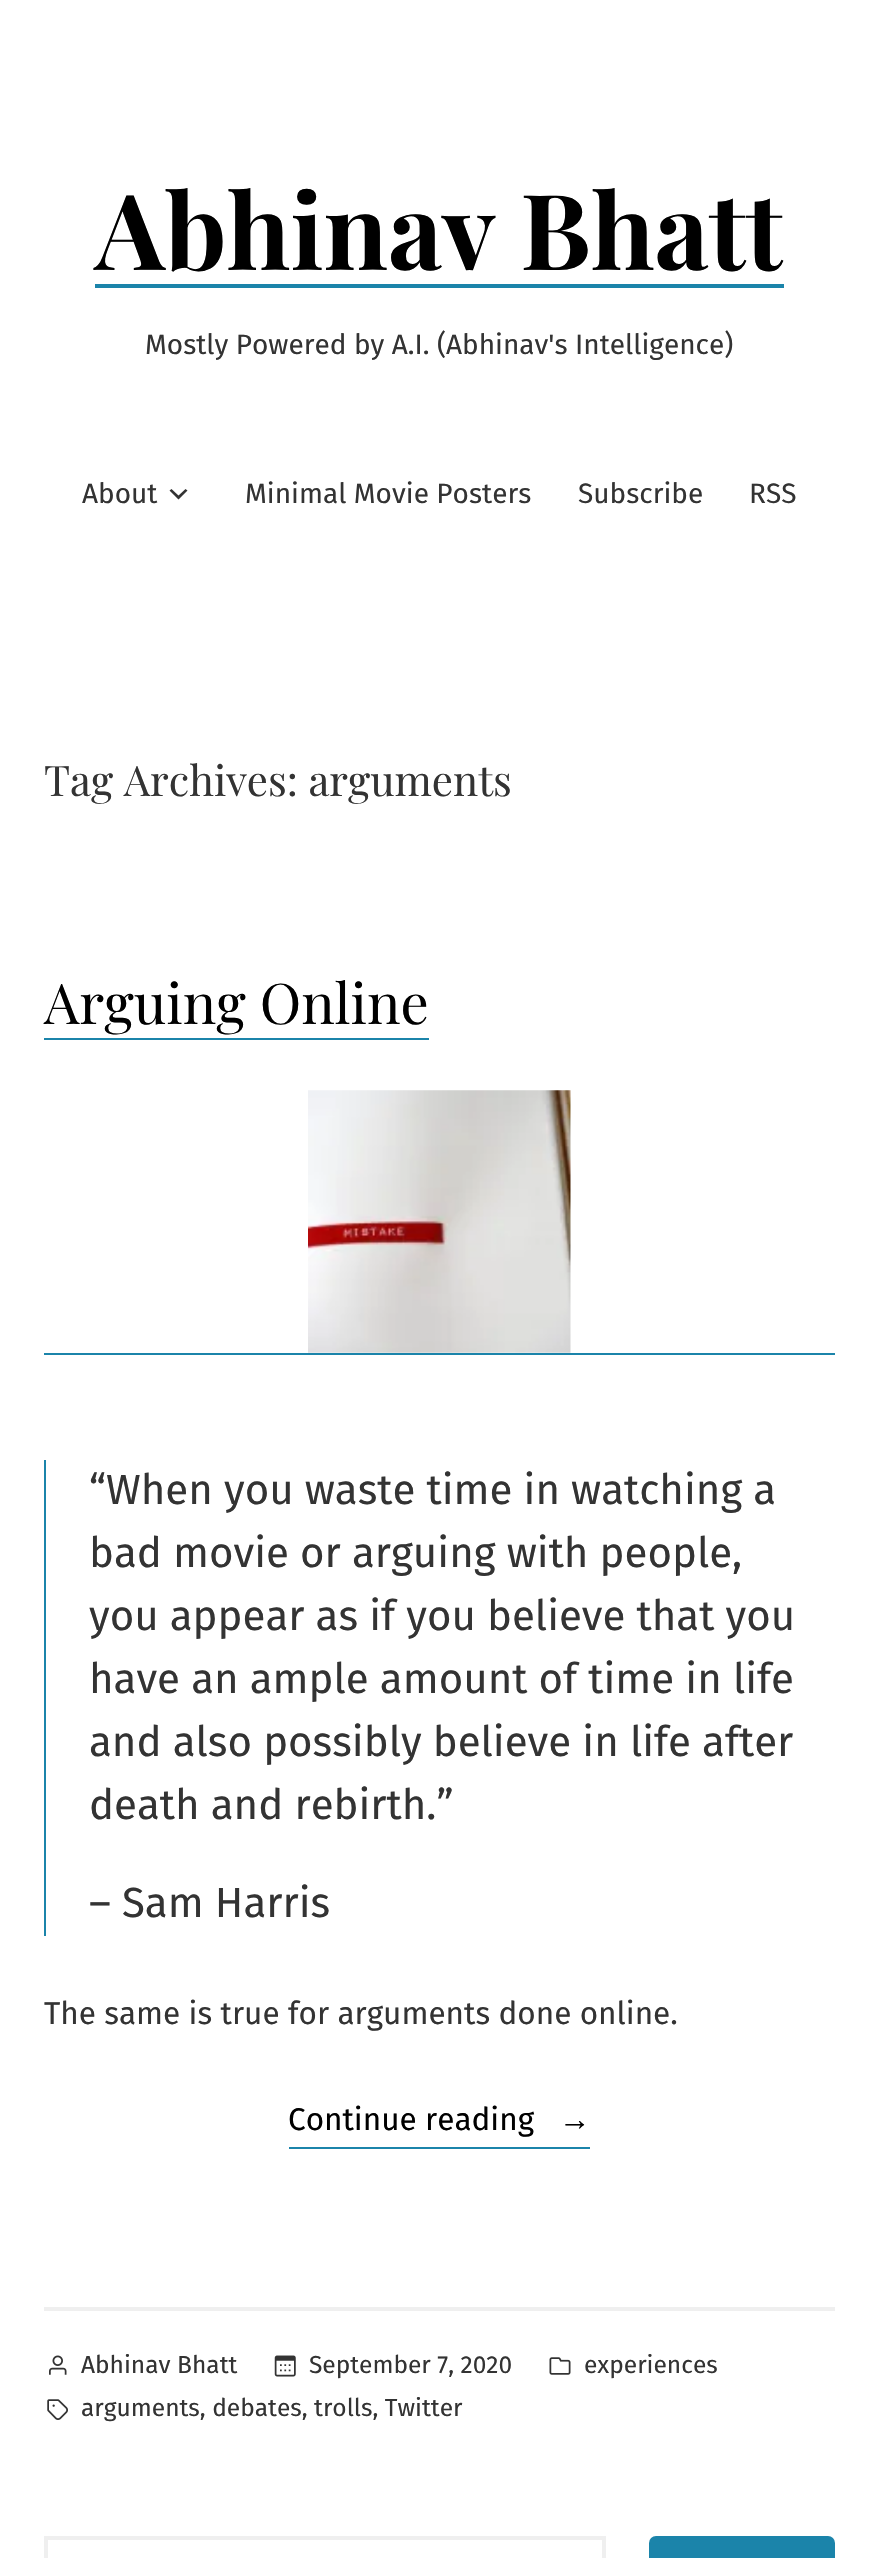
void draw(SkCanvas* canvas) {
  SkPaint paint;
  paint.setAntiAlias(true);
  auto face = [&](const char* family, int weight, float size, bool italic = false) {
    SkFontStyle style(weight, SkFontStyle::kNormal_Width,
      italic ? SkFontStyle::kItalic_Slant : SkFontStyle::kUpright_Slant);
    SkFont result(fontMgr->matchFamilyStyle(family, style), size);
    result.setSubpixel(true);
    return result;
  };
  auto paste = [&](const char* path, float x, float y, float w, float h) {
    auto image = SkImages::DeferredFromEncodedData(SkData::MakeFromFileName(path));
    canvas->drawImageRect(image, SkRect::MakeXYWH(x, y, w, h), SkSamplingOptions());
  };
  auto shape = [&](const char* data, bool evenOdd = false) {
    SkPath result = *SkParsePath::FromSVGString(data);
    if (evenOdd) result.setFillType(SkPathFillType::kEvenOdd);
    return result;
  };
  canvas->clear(0xffffffff);
  paint.setColor(0xff1b84aa);
  canvas->drawRect(SkRect::MakeXYWH(95, 284, 689, 4), paint);
  paint.setColor(0xff333333);
  canvas->drawPath(shape("M169.5 490.5L178.5 499.5L187.5 490.5L185.5 489L178.5 495.5L171.5 489Z", true), paint);
  paint.setColor(0xff1b84aa);
  canvas->drawRect(SkRect::MakeXYWH(44, 1038, 385, 2), paint);
  canvas->drawRect(SkRect::MakeXYWH(44, 1353, 791, 2), paint);
  paste("img/1.png", 308, 1090, 263, 263);
  {
    const struct { float x, y, w, h; SkColor color; } items[] = {
      {44, 1460, 2, 476, 0xff1b84aa},
      {289, 2147, 301, 2, 0xff1b84aa},
      {44, 2307, 791, 4, 0xffefefef},
    };
    for (auto [x, y, w, h, color] : items) {
      paint.setColor(color);
      canvas->drawRect(SkRect::MakeXYWH(x, y, w, h), paint);
    }
  }
  paste("img/2.png", 49, 2355, 18, 20);
  paste("img/3.png", 274, 2355, 22, 22);
  paste("img/4.png", 549, 2357, 22, 18);
  paste("img/5.png", 47, 2399, 21, 21);
  paint.setStroke(true);
  paint.setStrokeWidth(4);
  canvas->drawRect(SkRect::MakeXYWH(46, 2538, 558, 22), paint);
  paint.setStroke(false);
  paint.setColor(0xff1b84aa);
  canvas->drawRoundRect(SkRect::MakeXYWH(649, 2536, 186, 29), 7, 7, paint);
  auto f0 = face("Playfair Display", 700, 105);
  paint.setColor(0xff000000);
  canvas->drawString("Abhinav Bhatt", 95, 270, f0, paint);
  auto f1 = face("Fira Sans", 400, 28);
  paint.setColor(0xff333333);
  {
    const struct { const char* s; float x, y; } items[] = {
      {"Mostly Powered by A.I. (Abhinav's Intelligence)", 145, 354},
      {"About", 82, 503},
      {"Minimal Movie Posters", 245, 503},
      {"Subscribe", 578, 503},
      {"RSS", 749, 503},
    };
    for (auto [s, x, y] : items) {
      canvas->drawString(s, x, y, f1, paint);
    }
  }
  auto f2 = face("Playfair Display", 400, 42);
  canvas->drawString("Tag Archives: arguments", 44, 796, f2, paint);
  auto f3 = face("Playfair Display", 400, 56);
  paint.setColor(0xff000000);
  canvas->drawString("Arguing Online", 44, 1024, f3, paint);
  auto f4 = face("Fira Sans", 400, 42);
  paint.setColor(0xff333333);
  {
    const struct { const char* s; float x, y; } items[] = {
      {"“When you waste time in watching a", 89, 1504},
      {"bad movie or arguing with people,", 89, 1567},
      {"you appear as if you believe that you", 89, 1630},
      {"have an ample amount of time in life", 89, 1693},
      {"and also possibly believe in life after", 89, 1756},
      {"death and rebirth.”", 89, 1819},
      {"– Sam Harris", 89, 1917},
    };
    for (auto [s, x, y] : items) {
      canvas->drawString(s, x, y, f4, paint);
    }
  }
  auto f5 = face("Fira Sans", 400, 31.5f);
  canvas->drawString("The same is true for arguments done online.", 44, 2024, f5, paint);
  paint.setColor(0xff000000);
  canvas->drawString("Continue reading", 288, 2130, f5, paint);
  auto f6 = face("Liberation Sans", 400, 31.5f);
  canvas->drawString("→", 559, 2130, f6, paint);
  auto f7 = face("Fira Sans", 400, 24.5f);
  paint.setColor(0xff333333);
  {
    const struct { const char* s; float x, y; } items[] = {
      {"Abhinav Bhatt", 81, 2373},
      {"September 7, 2020", 309, 2373},
      {"experiences", 584, 2373},
      {"arguments, debates, trolls, Twitter", 81, 2416},
    };
    for (auto [s, x, y] : items) {
      canvas->drawString(s, x, y, f7, paint);
    }
  }
}
